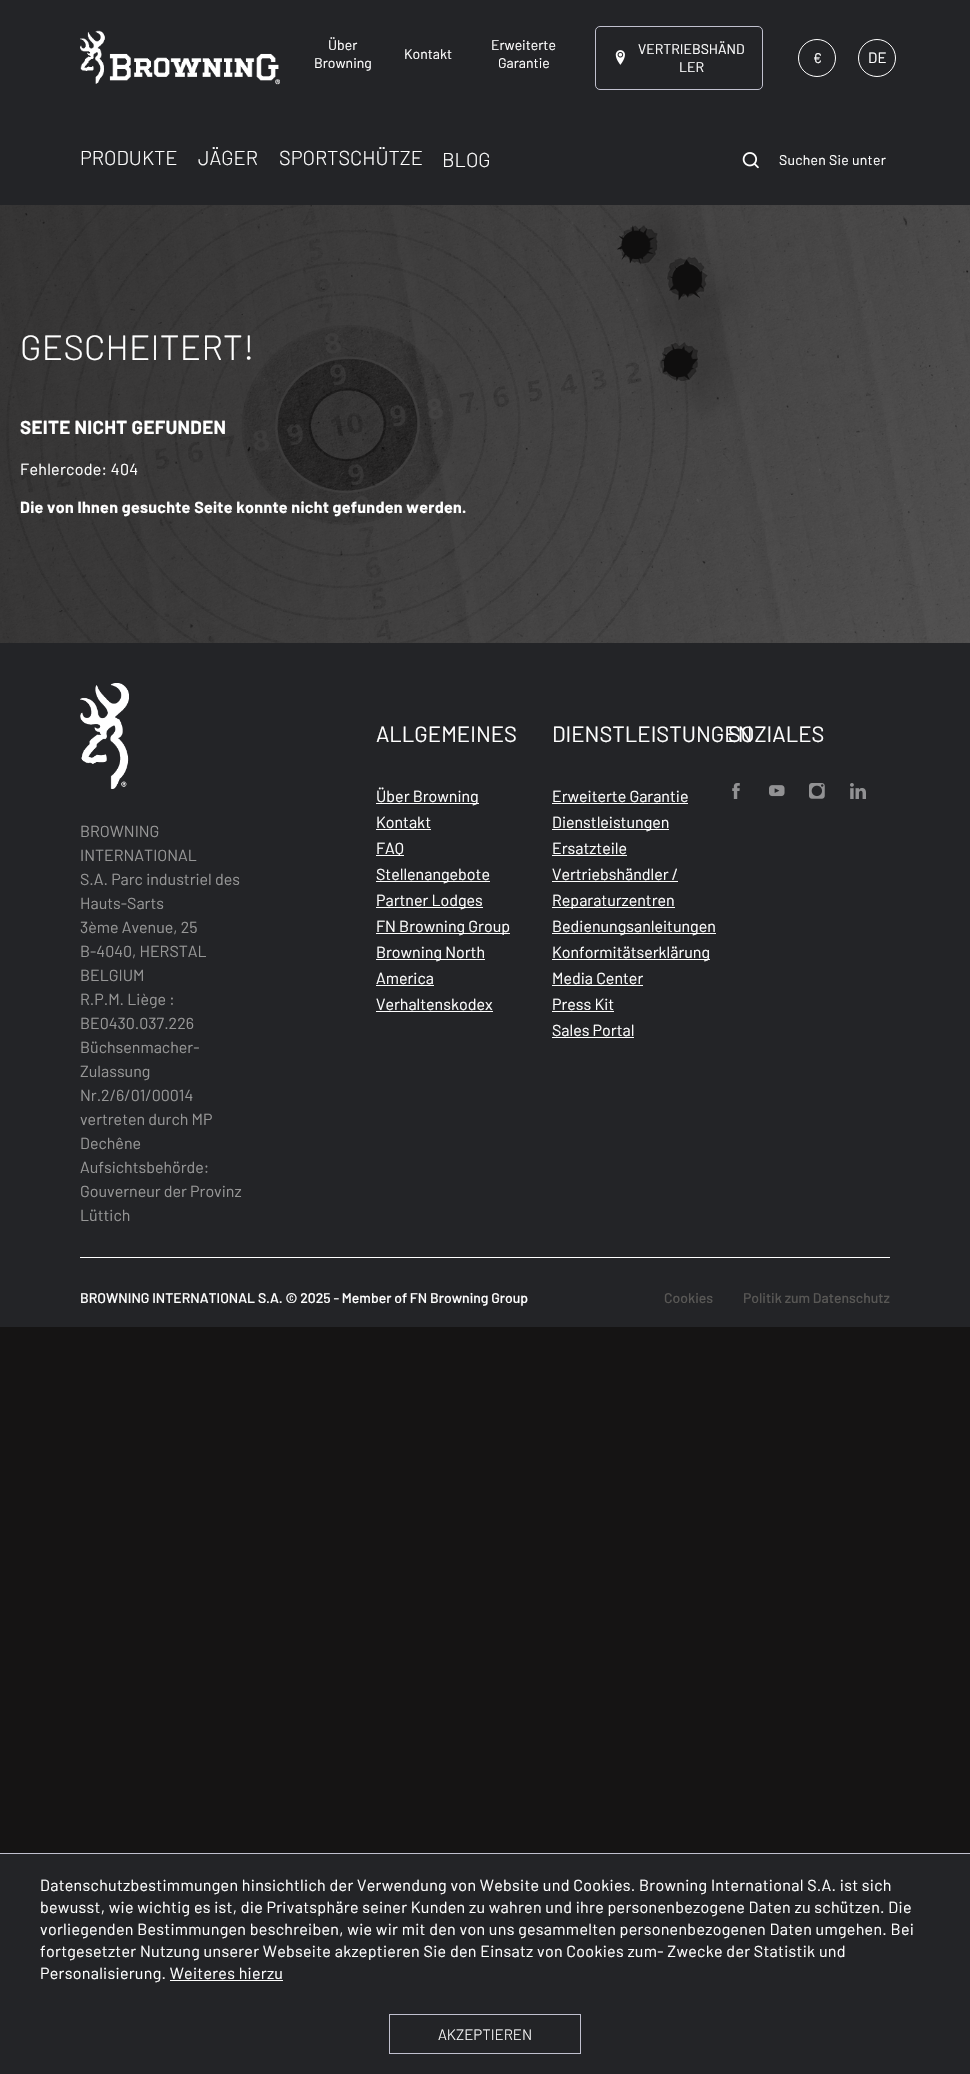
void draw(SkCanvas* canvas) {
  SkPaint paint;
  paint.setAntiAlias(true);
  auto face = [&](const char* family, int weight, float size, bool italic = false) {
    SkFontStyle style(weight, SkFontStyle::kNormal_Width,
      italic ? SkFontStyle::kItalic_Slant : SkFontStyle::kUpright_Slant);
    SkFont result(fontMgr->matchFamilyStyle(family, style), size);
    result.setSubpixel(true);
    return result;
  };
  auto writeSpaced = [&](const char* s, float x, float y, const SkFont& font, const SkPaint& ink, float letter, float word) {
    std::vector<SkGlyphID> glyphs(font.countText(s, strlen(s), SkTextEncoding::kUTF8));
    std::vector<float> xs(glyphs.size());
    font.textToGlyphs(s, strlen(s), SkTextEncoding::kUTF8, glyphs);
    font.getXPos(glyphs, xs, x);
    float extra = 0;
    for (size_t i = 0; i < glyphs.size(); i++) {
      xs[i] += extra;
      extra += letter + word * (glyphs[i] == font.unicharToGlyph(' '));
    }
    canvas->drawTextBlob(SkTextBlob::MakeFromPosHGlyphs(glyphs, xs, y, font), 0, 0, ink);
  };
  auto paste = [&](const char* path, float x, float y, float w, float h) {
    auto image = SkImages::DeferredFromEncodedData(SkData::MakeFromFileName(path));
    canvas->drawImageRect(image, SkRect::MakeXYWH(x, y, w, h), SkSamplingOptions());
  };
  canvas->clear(0xff151414);
  paint.setColor(0xff232427);
  canvas->drawRect(SkRect::MakeXYWH(0, 0, 970, 205), paint);
  paste("img/1.png", 80, 30, 200, 55);
  paint.setStroke(true);
  paint.setStrokeWidth(1);
  paint.setColor(0xffc1c1cf);
  canvas->drawRoundRect(SkRect::MakeXYWH(595.5f, 26.5f, 167, 63), 4.5f, 4.5f, paint);
  paste("img/2.png", 615, 50, 10, 15);
  paint.setColor(0xffffffff);
  canvas->drawCircle(817, 58, 18.5f, paint);
  canvas->drawCircle(877, 58, 18.5f, paint);
  paste("img/3.png", 742, 152, 17, 17);
  paint.setStroke(false);
  {
    const struct { float x, y, w, h; SkColor color; } items[] = {
      {0, 1854, 970, 220, 0xff232427},
      {0, 1853, 970, 1, 0xffc1c1cf},
      {170, 1980, 113, 1, 0xffffffff},
    };
    for (auto [x, y, w, h, color] : items) {
      paint.setColor(color);
      canvas->drawRect(SkRect::MakeXYWH(x, y, w, h), paint);
    }
  }
  paint.setStroke(true);
  paint.setColor(0xffc1c1cf);
  canvas->drawRect(SkRect::MakeXYWH(389.5f, 2014.5f, 191, 39), paint);
  paste("img/4.png", 0, 205, 970, 438);
  paint.setStroke(false);
  {
    const struct { float x, y, w, h; SkColor color; } items[] = {
      {0, 643, 970, 684, 0xff232427},
      {80, 1257, 810, 1, 0xffffffff},
      {376, 803, 103, 1, 0xffffffff},
      {376, 829, 55, 1, 0xffffffff},
      {376, 855, 28, 1, 0xffffffff},
      {376, 881, 114, 1, 0xffffffff},
      {376, 907, 107, 1, 0xffffffff},
      {376, 933, 134, 1, 0xffffffff},
      {376, 959, 109, 1, 0xffffffff},
      {376, 985, 58, 1, 0xffffffff},
      {376, 1011, 117, 1, 0xffffffff},
      {552, 803, 136, 1, 0xffffffff},
      {552, 829, 117, 1, 0xffffffff},
      {552, 855, 75, 1, 0xffffffff},
      {552, 881, 126, 1, 0xffffffff},
      {552, 907, 123, 1, 0xffffffff},
      {552, 933, 164, 1, 0xffffffff},
      {552, 959, 158, 1, 0xffffffff},
      {552, 985, 91, 1, 0xffffffff},
      {552, 1011, 62, 1, 0xffffffff},
      {552, 1037, 82, 1, 0xffffffff},
    };
    for (auto [x, y, w, h, color] : items) {
      paint.setColor(color);
      canvas->drawRect(SkRect::MakeXYWH(x, y, w, h), paint);
    }
  }
  paste("img/5.png", 732, 783, 8, 16);
  paste("img/6.png", 769, 785, 16, 12);
  paste("img/7.png", 809, 783, 16, 16);
  paste("img/8.png", 850, 783, 16, 16);
  paste("img/9.png", 80, 683, 49, 106);
  auto f0 = face("Barlow", 400, 14);
  {
    const struct { const char* s; float x, y; } items[] = {
      {"Über", 328, 50},
      {"Browning", 314, 68},
      {"Kontakt", 404, 59},
      {"Erweiterte", 491, 50},
      {"Garantie", 498, 68},
      {"VERTRIEBSHÄND", 638, 54},
      {"LER", 679, 72},
      {"€", 813, 63},
    };
    for (auto [s, x, y] : items) {
      canvas->drawString(s, x, y, f0, paint);
    }
  }
  auto f1 = face("Barlow", 400, 15);
  writeSpaced("DE", 868, 63, f1, paint, 0.25f, 0);
  auto f2 = face("Barlow", 300, 20);
  {
    const struct { const char* s; float x, y; } items[] = {
      {"PRODUKTE", 80, 165},
      {"JÄGER", 198, 165},
      {"SPORTSCHÜTZE", 279, 165},
      {"BLOG", 442, 167},
    };
    for (auto [s, x, y] : items) {
      canvas->drawString(s, x, y, f2, paint);
    }
  }
  writeSpaced("Suchen Sie unter", 779, 165, f0, paint, 0.25f, 0);
  auto f3 = face("Barlow", 400, 16);
  {
    const struct { const char* s; float x, y; } items[] = {
      {"Datenschutzbestimmungen hinsichtlich der Verwendung von Website und Cookies. Browning International S.A. ist sich", 40, 1891},
      {"bewusst, wie wichtig es ist, die Privatsphäre seiner Kunden zu wahren und ihre personenbezogene Daten zu schützen. Die", 40, 1913},
      {"vorliegenden Bestimmungen beschreiben, wie wir mit den von uns gesammelten personenbezogenen Daten umgehen. Bei", 40, 1935},
      {"fortgesetzter Nutzung unserer Webseite akzeptieren Sie den Einsatz von Cookies zum- Zwecke der Statistik und", 40, 1957},
      {"Personalisierung. Weiteres hierzu", 40, 1979},
    };
    for (auto [s, x, y] : items) {
      writeSpaced(s, x, y, f3, paint, 0.3f, 0);
    }
  }
  auto f4 = face("Barlow", 300, 15);
  canvas->drawString("AKZEPTIEREN", 438, 2040, f4, paint);
  auto f5 = face("Barlow", 300, 35);
  writeSpaced("GESCHEITERT!", 20, 360, f5, paint, 0.25f, 0);
  auto f6 = face("Barlow", 700, 18.75f);
  writeSpaced("SEITE NICHT GEFUNDEN", 20, 434, f6, paint, 0.3f, 0);
  writeSpaced("Fehlercode: 404", 20, 475, f3, paint, 0.3f, 0);
  auto f7 = face("Barlow", 700, 16);
  writeSpaced("Die von Ihnen gesuchte Seite konnte nicht gefunden werden.", 20, 513, f7, paint, 0.3f, 0);
  auto f8 = face("Barlow", 400, 22);
  canvas->drawString("ALLGEMEINES", 376, 742, f8, paint);
  {
    const struct { const char* s; float x, y; } items[] = {
      {"Über Browning", 376, 802},
      {"Kontakt", 376, 828},
      {"FAQ", 376, 854},
      {"Stellenangebote", 376, 880},
      {"Partner Lodges", 376, 906},
      {"FN Browning Group", 376, 932},
      {"Browning North", 376, 958},
      {"America", 376, 984},
      {"Verhaltenskodex", 376, 1010},
    };
    for (auto [s, x, y] : items) {
      canvas->drawString(s, x, y, f3, paint);
    }
  }
  canvas->drawString("DIENSTLEISTUNGEN", 552, 742, f8, paint);
  {
    const struct { const char* s; float x, y; } items[] = {
      {"Erweiterte Garantie", 552, 802},
      {"Dienstleistungen", 552, 828},
      {"Ersatzteile", 552, 854},
      {"Vertriebshändler /", 552, 880},
      {"Reparaturzentren", 552, 906},
      {"Bedienungsanleitungen", 552, 932},
      {"Konformitätserklärung", 552, 958},
      {"Media Center", 552, 984},
      {"Press Kit", 552, 1010},
      {"Sales Portal", 552, 1036},
    };
    for (auto [s, x, y] : items) {
      canvas->drawString(s, x, y, f3, paint);
    }
  }
  canvas->drawString("SOZIALES", 728, 742, f8, paint);
  paint.setColor(0xff979797);
  {
    const struct { const char* s; float x, y; } items[] = {
      {"BROWNING", 80, 837},
      {"INTERNATIONAL", 80, 861},
      {"S.A. Parc industriel des", 80, 885},
      {"Hauts-Sarts", 80, 909},
      {"3ème Avenue, 25", 80, 933},
      {"B-4040, HERSTAL", 80, 957},
      {"BELGIUM", 80, 981},
      {"R.P.M. Liège :", 80, 1005},
      {"BE0430.037.226", 80, 1029},
      {"Büchsenmacher-", 80, 1053},
      {"Zulassung", 80, 1077},
      {"Nr.2/6/01/00014", 80, 1101},
      {"vertreten durch MP", 80, 1125},
      {"Dechêne", 80, 1149},
      {"Aufsichtsbehörde:", 80, 1173},
      {"Gouverneur der Provinz", 80, 1197},
      {"Lüttich", 80, 1221},
    };
    for (auto [s, x, y] : items) {
      canvas->drawString(s, x, y, f3, paint);
    }
  }
  auto f9 = face("Barlow", 500, 14);
  paint.setColor(0xffffffff);
  canvas->drawString("BROWNING INTERNATIONAL S.A. © 2025 - Member of FN Browning Group", 80, 1303, f9, paint);
  paint.setColor(0xff585755);
  canvas->drawString("Cookies", 664, 1303, f9, paint);
  canvas->drawString("Politik zum Datenschutz", 743, 1303, f9, paint);
}
